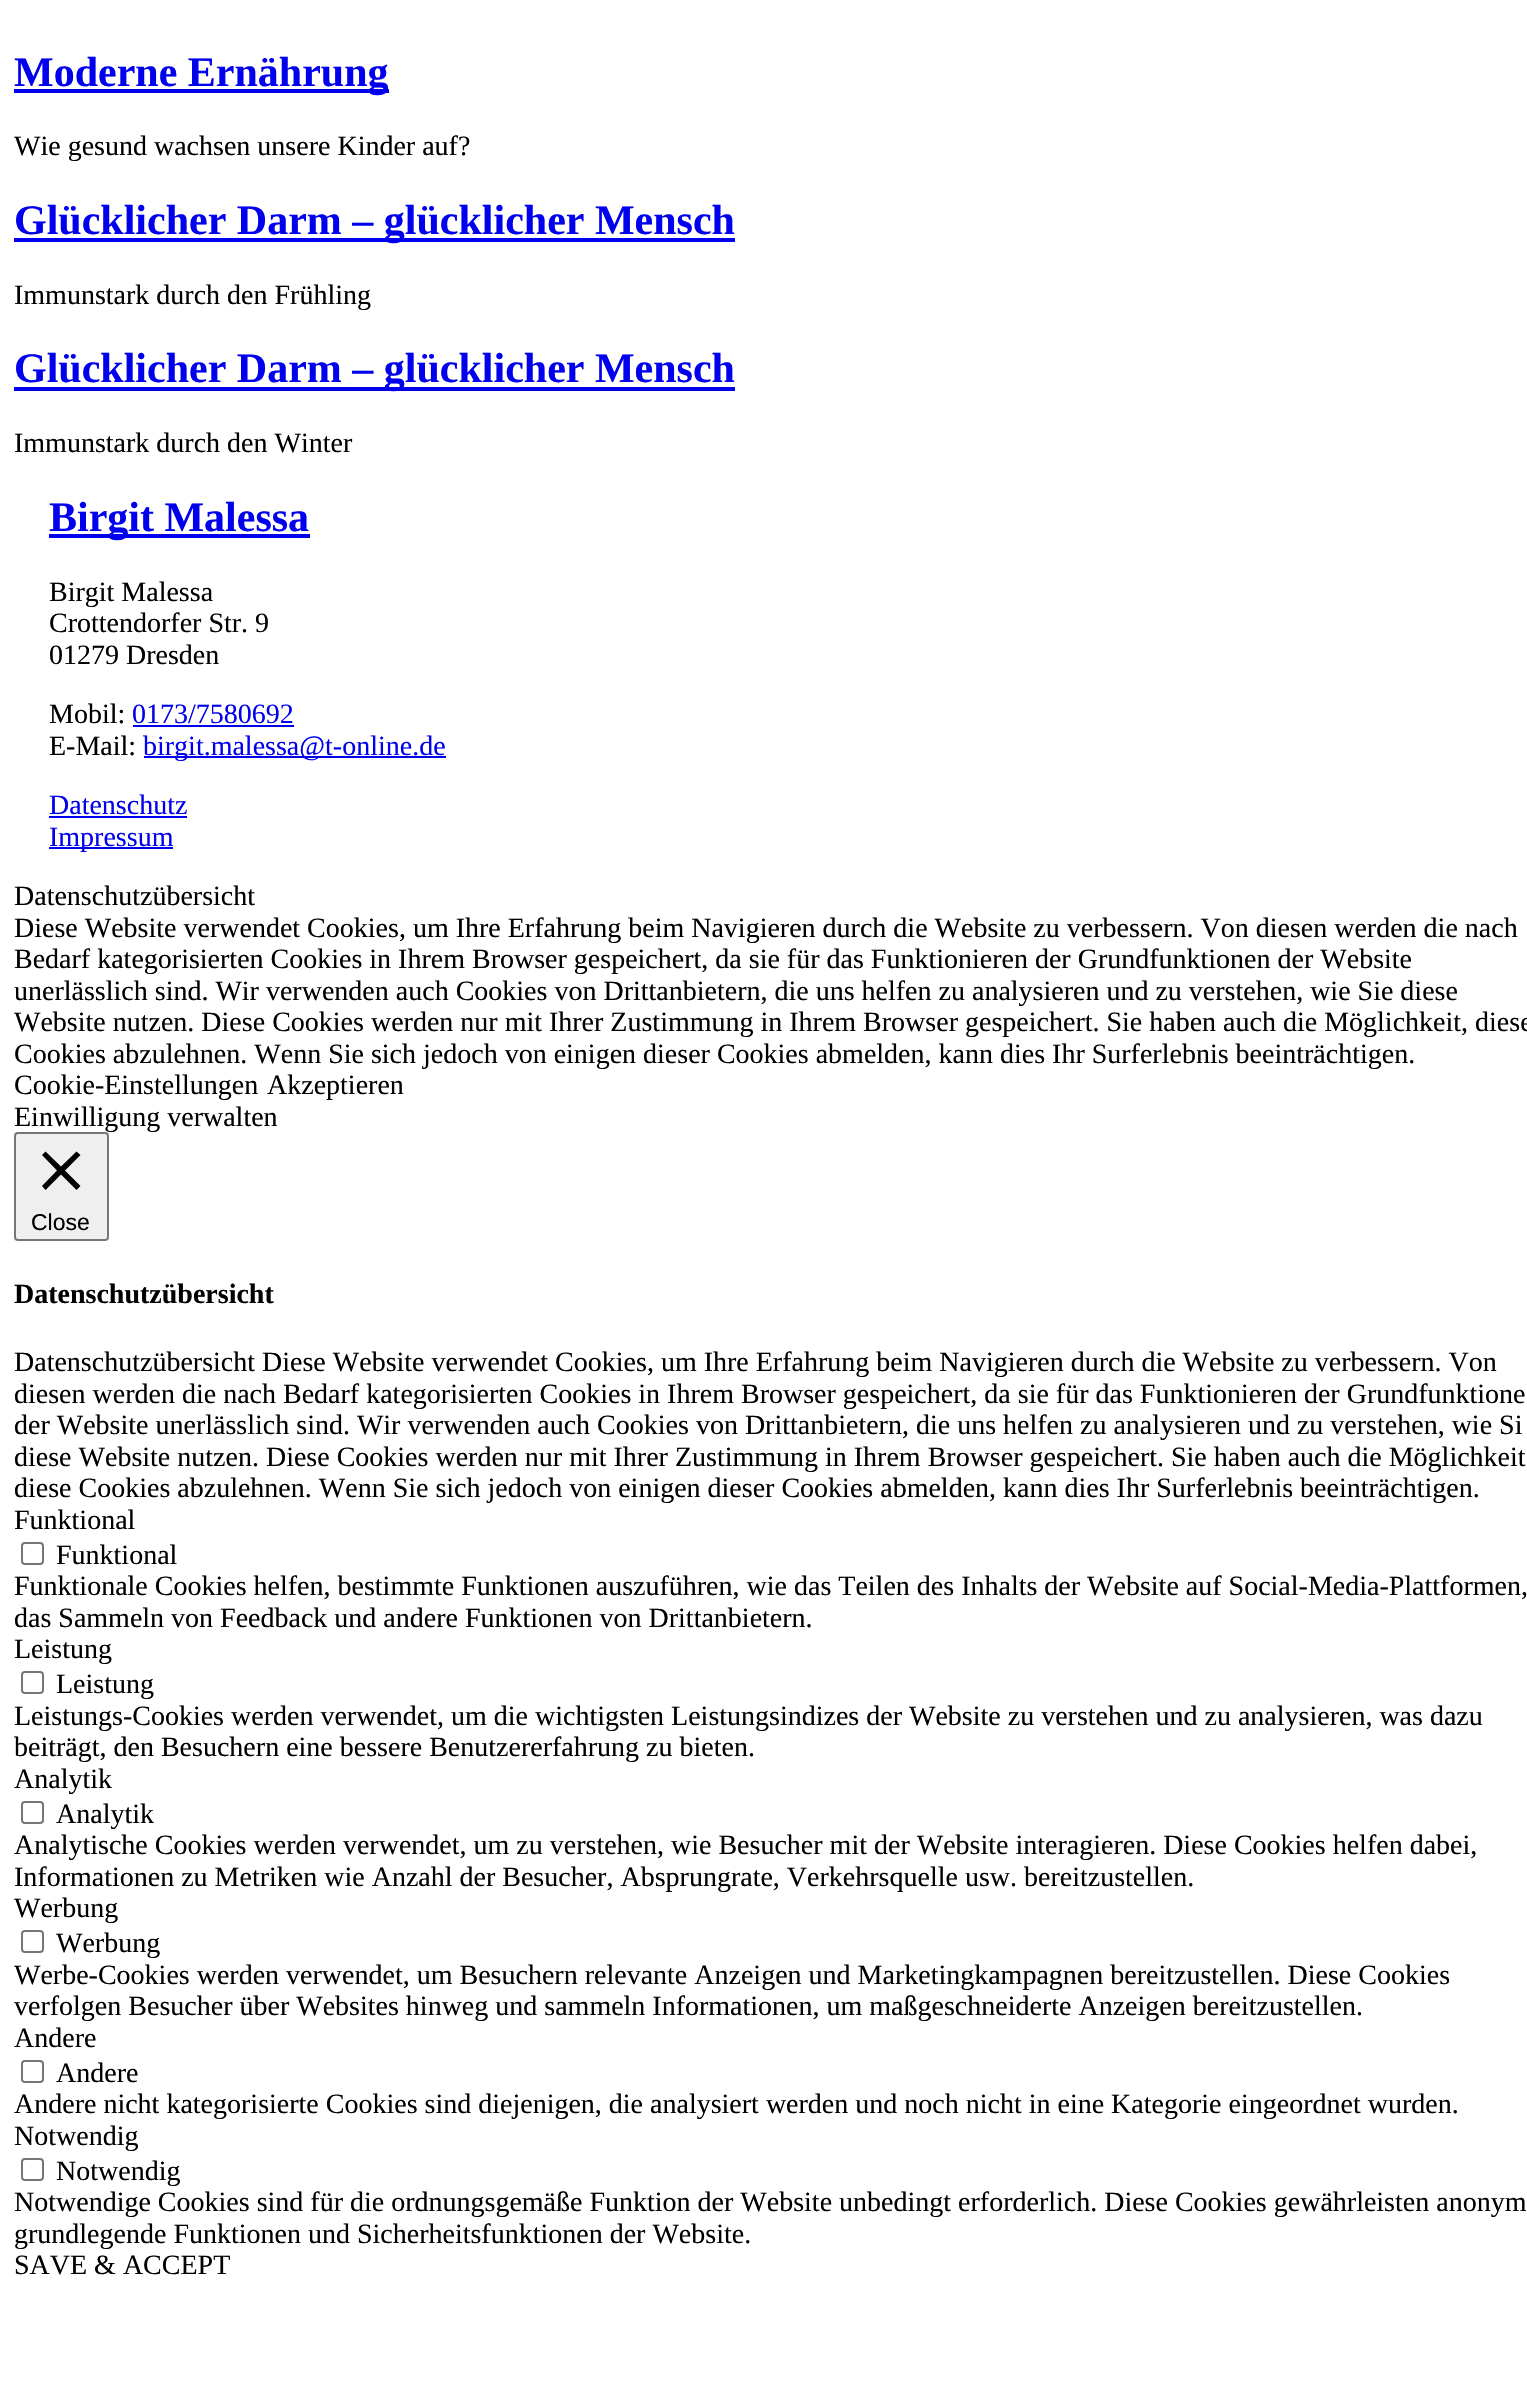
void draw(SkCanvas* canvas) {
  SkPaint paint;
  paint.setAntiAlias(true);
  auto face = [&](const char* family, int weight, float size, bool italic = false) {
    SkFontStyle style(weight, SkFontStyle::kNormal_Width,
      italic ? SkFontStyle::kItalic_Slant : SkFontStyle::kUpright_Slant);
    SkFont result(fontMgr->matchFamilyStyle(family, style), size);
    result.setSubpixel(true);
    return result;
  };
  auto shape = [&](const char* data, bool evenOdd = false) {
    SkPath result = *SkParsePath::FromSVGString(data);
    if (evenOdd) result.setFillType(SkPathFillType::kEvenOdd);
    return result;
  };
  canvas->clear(0xffffffff);
  {
    const struct { float x, y, w, h; SkColor color; } items[] = {
      {14, 89, 375, 4, 0xff0000ee},
      {14, 238, 721, 4, 0xff0000ee},
      {14, 387, 721, 4, 0xff0000ee},
      {49, 534, 261, 4, 0xff0000ee},
      {133, 725, 161, 2, 0xff0000ee},
      {144, 756, 302, 2, 0xff0000ee},
      {49, 816, 138, 2, 0xff0000ee},
      {49, 847, 124, 2, 0xff0000ee},
    };
    for (auto [x, y, w, h, color] : items) {
      paint.setColor(color);
      canvas->drawRect(SkRect::MakeXYWH(x, y, w, h), paint);
    }
  }
  paint.setStroke(true);
  paint.setStrokeWidth(2);
  paint.setColor(0xff767676);
  canvas->drawRoundRect(SkRect::MakeXYWH(22, 1543, 21, 21), 3, 3, paint);
  canvas->drawRoundRect(SkRect::MakeXYWH(22, 1672, 21, 21), 3, 3, paint);
  canvas->drawRoundRect(SkRect::MakeXYWH(22, 1802, 21, 21), 3, 3, paint);
  canvas->drawRoundRect(SkRect::MakeXYWH(22, 1931, 21, 21), 3, 3, paint);
  canvas->drawRoundRect(SkRect::MakeXYWH(22, 2061, 21, 21), 3, 3, paint);
  canvas->drawRoundRect(SkRect::MakeXYWH(22, 2159, 21, 21), 3, 3, paint);
  auto f0 = face("Liberation Serif", 700, 42);
  paint.setStroke(false);
  paint.setColor(0xff0000ee);
  canvas->drawString("Moderne Ernährung", 14, 86, f0, paint);
  auto f1 = face("Liberation Serif", 400, 28);
  paint.setColor(0xff000000);
  canvas->drawString("Wie gesund wachsen unsere Kinder auf?", 14, 155, f1, paint);
  paint.setColor(0xff0000ee);
  canvas->drawString("Glücklicher Darm – glücklicher Mensch", 14, 234, f0, paint);
  paint.setColor(0xff000000);
  canvas->drawString("Immunstark durch den Frühling", 14, 304, f1, paint);
  paint.setColor(0xff0000ee);
  canvas->drawString("Glücklicher Darm – glücklicher Mensch", 14, 382, f0, paint);
  paint.setColor(0xff000000);
  canvas->drawString("Immunstark durch den Winter", 14, 452, f1, paint);
  paint.setColor(0xff0000ee);
  canvas->drawString("Birgit Malessa", 49, 531, f0, paint);
  paint.setColor(0xff000000);
  {
    const struct { const char* s; float x, y; } items[] = {
      {"Birgit Malessa", 49, 601},
      {"Crottendorfer Str. 9", 49, 632},
      {"01279 Dresden", 49, 664},
      {"Mobil:", 49, 723},
    };
    for (auto [s, x, y] : items) {
      canvas->drawString(s, x, y, f1, paint);
    }
  }
  paint.setColor(0xff0000ee);
  canvas->drawString("0173/7580692", 132, 723, f1, paint);
  paint.setColor(0xff000000);
  canvas->drawString("E-Mail:", 49, 755, f1, paint);
  paint.setColor(0xff0000ee);
  {
    const struct { const char* s; float x, y; } items[] = {
      {"birgit.malessa@t-online.de", 143, 755},
      {"Datenschutz", 49, 814},
      {"Impressum", 49, 846},
    };
    for (auto [s, x, y] : items) {
      canvas->drawString(s, x, y, f1, paint);
    }
  }
  paint.setColor(0xff000000);
  {
    const struct { const char* s; float x, y; } items[] = {
      {"Datenschutzübersicht", 14, 905},
      {"Diese Website verwendet Cookies, um Ihre Erfahrung beim Navigieren durch die Website zu verbessern. Von diesen werden die nach", 14, 937},
      {"Bedarf kategorisierten Cookies in Ihrem Browser gespeichert, da sie für das Funktionieren der Grundfunktionen der Website", 14, 968},
      {"unerlässlich sind. Wir verwenden auch Cookies von Drittanbietern, die uns helfen zu analysieren und zu verstehen, wie Sie diese", 14, 1000},
      {"Website nutzen. Diese Cookies werden nur mit Ihrer Zustimmung in Ihrem Browser gespeichert. Sie haben auch die Möglichkeit, diese", 14, 1031},
      {"Cookies abzulehnen. Wenn Sie sich jedoch von einigen dieser Cookies abmelden, kann dies Ihr Surferlebnis beeinträchtigen.", 14, 1063},
      {"Cookie-Einstellungen", 14, 1094},
      {"Akzeptieren", 267, 1094},
      {"Einwilligung verwalten", 14, 1126},
    };
    for (auto [s, x, y] : items) {
      canvas->drawString(s, x, y, f1, paint);
    }
  }
  paint.setColor(0xffefefef);
  canvas->drawRoundRect(SkRect::MakeXYWH(15, 1133, 93, 107), 3, 3, paint);
  paint.setStroke(true);
  paint.setColor(0xff767676);
  canvas->drawRoundRect(SkRect::MakeXYWH(15, 1133, 93, 107), 3, 3, paint);
  paint.setStroke(false);
  paint.setColor(0xff000000);
  canvas->drawPath(shape("M80.5 1155L76.5 1151.5L61 1166.5L45.5 1151.5L42 1155L57 1170.5L42 1186L45.5 1190L61 1174.5L76.5 1190L80.5 1186L65 1170.5Z"), paint);
  auto f2 = face("Liberation Sans", 400, 23);
  canvas->drawString("Close", 31, 1230, f2, paint);
  auto f3 = face("Liberation Serif", 700, 28);
  canvas->drawString("Datenschutzübersicht", 14, 1303, f3, paint);
  {
    const struct { const char* s; float x, y; } items[] = {
      {"Datenschutzübersicht Diese Website verwendet Cookies, um Ihre Erfahrung beim Navigieren durch die Website zu verbessern. Von", 14, 1371},
      {"diesen werden die nach Bedarf kategorisierten Cookies in Ihrem Browser gespeichert, da sie für das Funktionieren der Grundfunktione", 14, 1403},
      {"der Website unerlässlich sind. Wir verwenden auch Cookies von Drittanbietern, die uns helfen zu analysieren und zu verstehen, wie Si", 14, 1434},
      {"diese Website nutzen. Diese Cookies werden nur mit Ihrer Zustimmung in Ihrem Browser gespeichert. Sie haben auch die Möglichkeit", 14, 1466},
      {"diese Cookies abzulehnen. Wenn Sie sich jedoch von einigen dieser Cookies abmelden, kann dies Ihr Surferlebnis beeinträchtigen.", 14, 1497},
      {"Funktional", 14, 1529},
      {"Funktional", 56, 1564},
      {"Funktionale Cookies helfen, bestimmte Funktionen auszuführen, wie das Teilen des Inhalts der Website auf Social-Media-Plattformen,", 14, 1595},
      {"das Sammeln von Feedback und andere Funktionen von Drittanbietern.", 14, 1627},
      {"Leistung", 14, 1658},
      {"Leistung", 56, 1693},
      {"Leistungs-Cookies werden verwendet, um die wichtigsten Leistungsindizes der Website zu verstehen und zu analysieren, was dazu", 14, 1725},
      {"beiträgt, den Besuchern eine bessere Benutzererfahrung zu bieten.", 14, 1756},
      {"Analytik", 14, 1788},
      {"Analytik", 56, 1823},
      {"Analytische Cookies werden verwendet, um zu verstehen, wie Besucher mit der Website interagieren. Diese Cookies helfen dabei,", 14, 1854},
      {"Informationen zu Metriken wie Anzahl der Besucher, Absprungrate, Verkehrsquelle usw. bereitzustellen.", 14, 1886},
      {"Werbung", 14, 1917},
      {"Werbung", 56, 1952},
      {"Werbe-Cookies werden verwendet, um Besuchern relevante Anzeigen und Marketingkampagnen bereitzustellen. Diese Cookies", 14, 1984},
      {"verfolgen Besucher über Websites hinweg und sammeln Informationen, um maßgeschneiderte Anzeigen bereitzustellen.", 14, 2015},
      {"Andere", 14, 2047},
      {"Andere", 56, 2082},
      {"Andere nicht kategorisierte Cookies sind diejenigen, die analysiert werden und noch nicht in eine Kategorie eingeordnet wurden.", 14, 2113},
      {"Notwendig", 14, 2145},
      {"Notwendig", 56, 2180},
      {"Notwendige Cookies sind für die ordnungsgemäße Funktion der Website unbedingt erforderlich. Diese Cookies gewährleisten anonym", 14, 2211},
      {"grundlegende Funktionen und Sicherheitsfunktionen der Website.", 14, 2243},
      {"SAVE & ACCEPT", 14, 2274},
    };
    for (auto [s, x, y] : items) {
      canvas->drawString(s, x, y, f1, paint);
    }
  }
}
